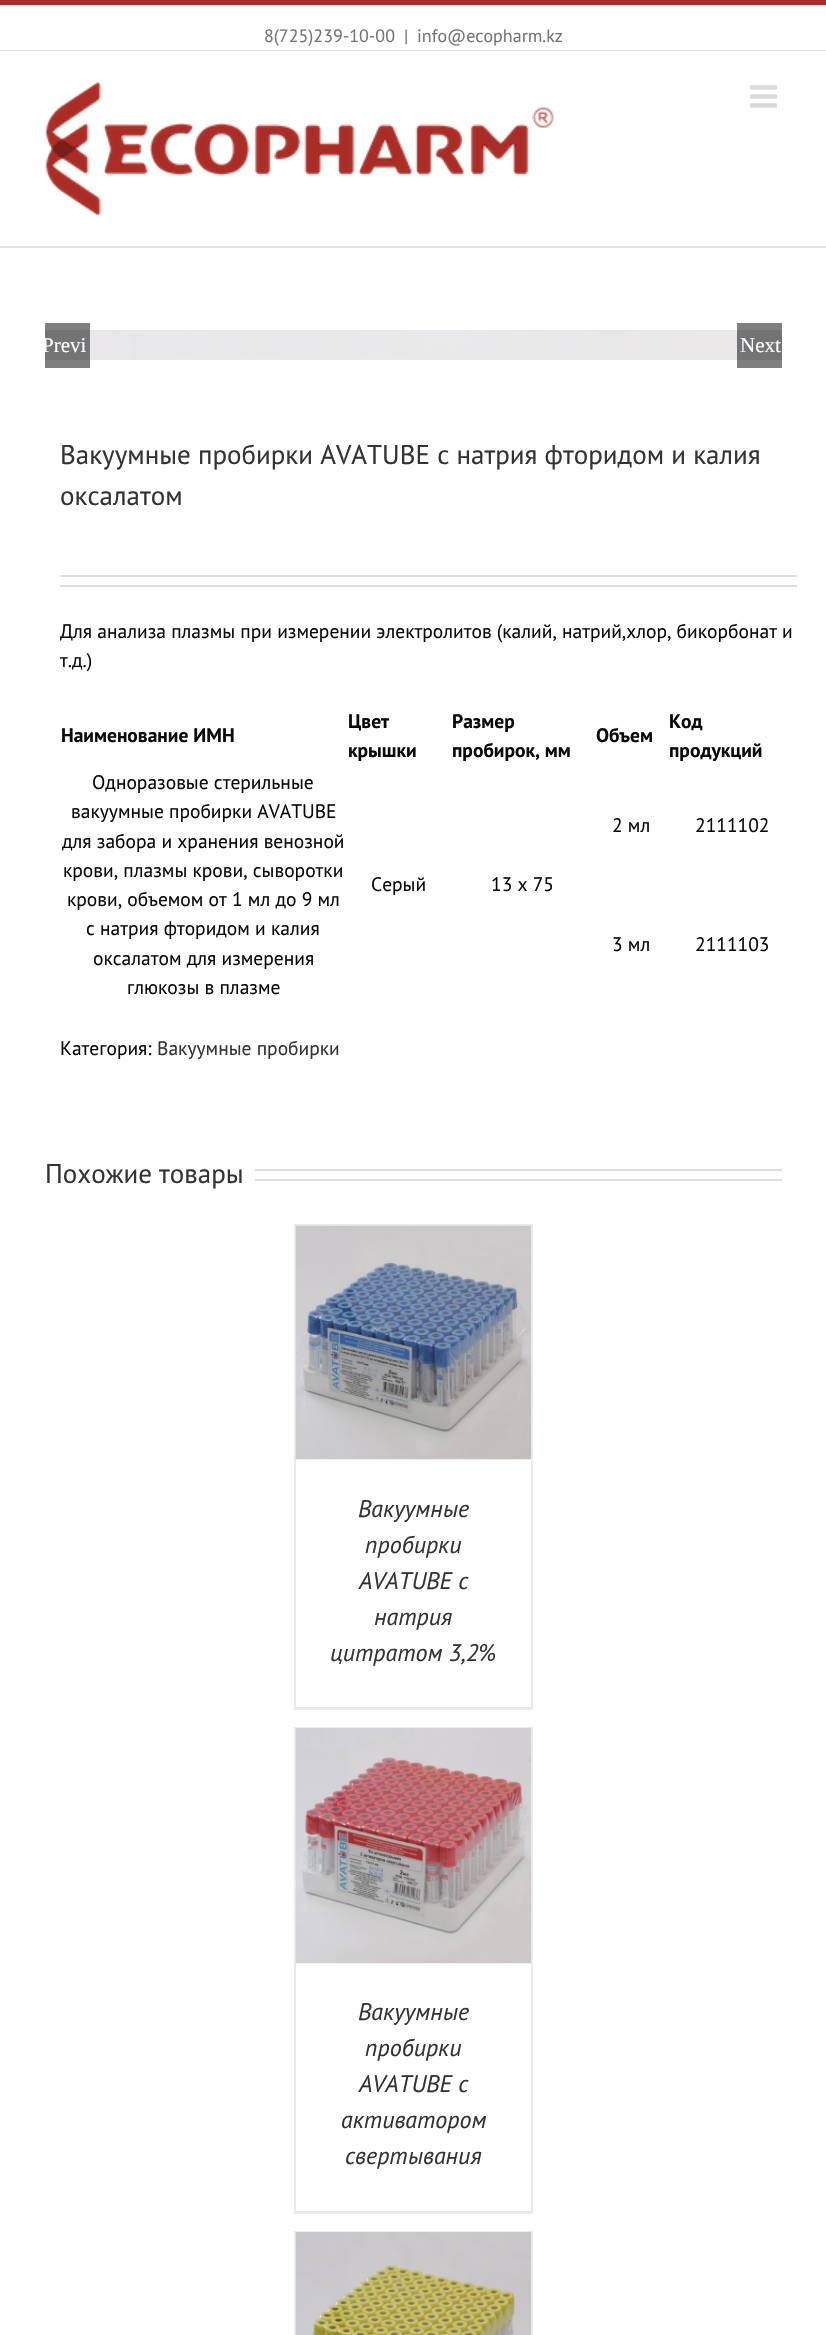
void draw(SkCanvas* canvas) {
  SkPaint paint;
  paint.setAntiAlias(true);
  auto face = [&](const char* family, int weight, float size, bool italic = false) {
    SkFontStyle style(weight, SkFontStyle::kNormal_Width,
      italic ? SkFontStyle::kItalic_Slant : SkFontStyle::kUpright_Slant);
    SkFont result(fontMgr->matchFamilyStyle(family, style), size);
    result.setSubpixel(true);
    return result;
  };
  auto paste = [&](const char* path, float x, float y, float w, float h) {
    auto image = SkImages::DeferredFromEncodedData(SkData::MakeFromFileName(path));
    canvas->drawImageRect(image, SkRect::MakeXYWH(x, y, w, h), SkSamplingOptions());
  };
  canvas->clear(0xffffffff);
  {
    const struct { float x, y, w, h; SkColor color; } items[] = {
      {0, 0, 826, 5, 0xffa92d26},
      {0, 50, 826, 1, 0xffe5e5e5},
      {0, 246, 826, 2, 0xffe5e5e5},
    };
    for (auto [x, y, w, h, color] : items) {
      paint.setColor(color);
      canvas->drawRect(SkRect::MakeXYWH(x, y, w, h), paint);
    }
  }
  paste("img/1.png", 45, 82, 509, 134);
  paste("img/2.png", 750, 85, 27, 23);
  paste("img/3.png", 45, 330, 737, 30);
  {
    const struct { float x, y, w, h; SkColor color; } items[] = {
      {45, 323, 45, 45, 0x80000000},
      {737, 323, 45, 45, 0x80000000},
      {60, 575, 737, 2, 0xffe0dede},
      {60, 585, 737, 2, 0xffe0dede},
      {255, 1169, 527, 2, 0xffe0dede},
      {255, 1179, 527, 2, 0xffe0dede},
      {294, 1224, 239, 2, 0xffebeaea},
      {531, 1224, 2, 486, 0xffebeaea},
      {294, 1707, 239, 3, 0xffebeaea},
      {294, 1224, 2, 486, 0xffebeaea},
    };
    for (auto [x, y, w, h, color] : items) {
      paint.setColor(color);
      canvas->drawRect(SkRect::MakeXYWH(x, y, w, h), paint);
    }
  }
  paste("img/4.png", 295, 1225, 236, 235);
  {
    const struct { float x, y, w, h; SkColor color; } items[] = {
      {294, 1727, 239, 1, 0xffebeaea},
      {531, 1727, 2, 487, 0xffebeaea},
      {294, 2211, 239, 3, 0xffebeaea},
      {294, 1727, 2, 487, 0xffebeaea},
    };
    for (auto [x, y, w, h, color] : items) {
      paint.setColor(color);
      canvas->drawRect(SkRect::MakeXYWH(x, y, w, h), paint);
    }
  }
  paste("img/5.png", 295, 1728, 236, 236);
  {
    const struct { float x, y, w, h; SkColor color; } items[] = {
      {294, 2231, 239, 1, 0xffebeaea},
      {531, 2231, 2, 104, 0xffebeaea},
      {294, 2231, 2, 104, 0xffebeaea},
    };
    for (auto [x, y, w, h, color] : items) {
      paint.setColor(color);
      canvas->drawRect(SkRect::MakeXYWH(x, y, w, h), paint);
    }
  }
  paste("img/6.png", 295, 2232, 236, 103);
  auto f0 = face("PT Sans", 400, 18);
  paint.setColor(0xff747474);
  {
    const struct { const char* s; float x, y; } items[] = {
      {"8(725)239-10-00", 264, 42},
      {"|", 404, 42},
      {"info@ecopharm.kz", 417, 42},
    };
    for (auto [s, x, y] : items) {
      canvas->drawString(s, x, y, f0, paint);
    }
  }
  canvas->save();
  canvas->clipRect(SkRect::MakeXYWH(45, 323, 45, 45));
  auto f1 = face("Liberation Serif", 400, 21);
  paint.setColor(0xffffffff);
  canvas->drawString("Previ", 42, 352, f1, paint);
  canvas->restore();
  canvas->drawString("Next", 740, 352, f1, paint);
  auto f2 = face("PT Sans", 400, 27);
  paint.setColor(0xff333333);
  canvas->drawString("Вакуумные пробирки AVATUBE с натрия фторидом и калия", 60, 464, f2, paint);
  canvas->drawString("оксалатом", 60, 505, f2, paint);
  auto f3 = face("PT Sans", 400, 19.5f);
  paint.setColor(0xff0a0a0a);
  canvas->drawString("Для анализа плазмы при измерении электролитов (калий, натрий,хлор, бикорбонат и", 60, 638, f3, paint);
  canvas->drawString("т.д.)", 60, 667, f3, paint);
  auto f4 = face("PT Sans", 700, 19.5f);
  {
    const struct { const char* s; float x, y; } items[] = {
      {"Наименование ИМН", 61, 742},
      {"Цвет", 348, 728},
      {"крышки", 348, 757},
      {"Размер", 452, 728},
      {"пробирок, мм", 452, 757},
      {"Объем", 596, 742},
      {"Код", 669, 728},
      {"продукций", 669, 757},
    };
    for (auto [s, x, y] : items) {
      canvas->drawString(s, x, y, f4, paint);
    }
  }
  {
    const struct { const char* s; float x, y; } items[] = {
      {"Одноразовые стерильные", 92, 789},
      {"вакуумные пробирки AVATUBE", 71, 818},
      {"для забора и хранения венозной", 62, 848},
      {"крови, плазмы крови, сыворотки", 63, 877},
      {"крови, объемом от 1 мл до 9 мл", 67, 906},
      {"с натрия фторидом и калия", 86, 935},
      {"оксалатом для измерения", 93, 965},
      {"глюкозы в плазме", 127, 994},
      {"2 мл", 612, 832},
      {"2111102", 695, 832},
      {"Серый", 371, 891},
      {"13 x 75", 491, 891},
      {"3 мл", 612, 951},
      {"2111103", 695, 951},
      {"Категория:", 60, 1055},
    };
    for (auto [s, x, y] : items) {
      canvas->drawString(s, x, y, f3, paint);
    }
  }
  paint.setColor(0xff333333);
  canvas->drawString("Вакуумные пробирки", 157, 1055, f3, paint);
  canvas->drawString("Похожие товары", 45, 1183, f2, paint);
  auto f5 = face("PT Sans", 400, 24, true);
  {
    const struct { const char* s; float x, y; } items[] = {
      {"Вакуумные", 358, 1517},
      {"пробирки", 365, 1553},
      {"AVATUBE с", 359, 1589},
      {"натрия", 374, 1625},
      {"цитратом 3,2%", 330, 1661},
      {"Вакуумные", 358, 2020},
      {"пробирки", 365, 2056},
      {"AVATUBE с", 359, 2092},
      {"активатором", 341, 2128},
      {"свертывания", 345, 2164},
    };
    for (auto [s, x, y] : items) {
      canvas->drawString(s, x, y, f5, paint);
    }
  }
}
